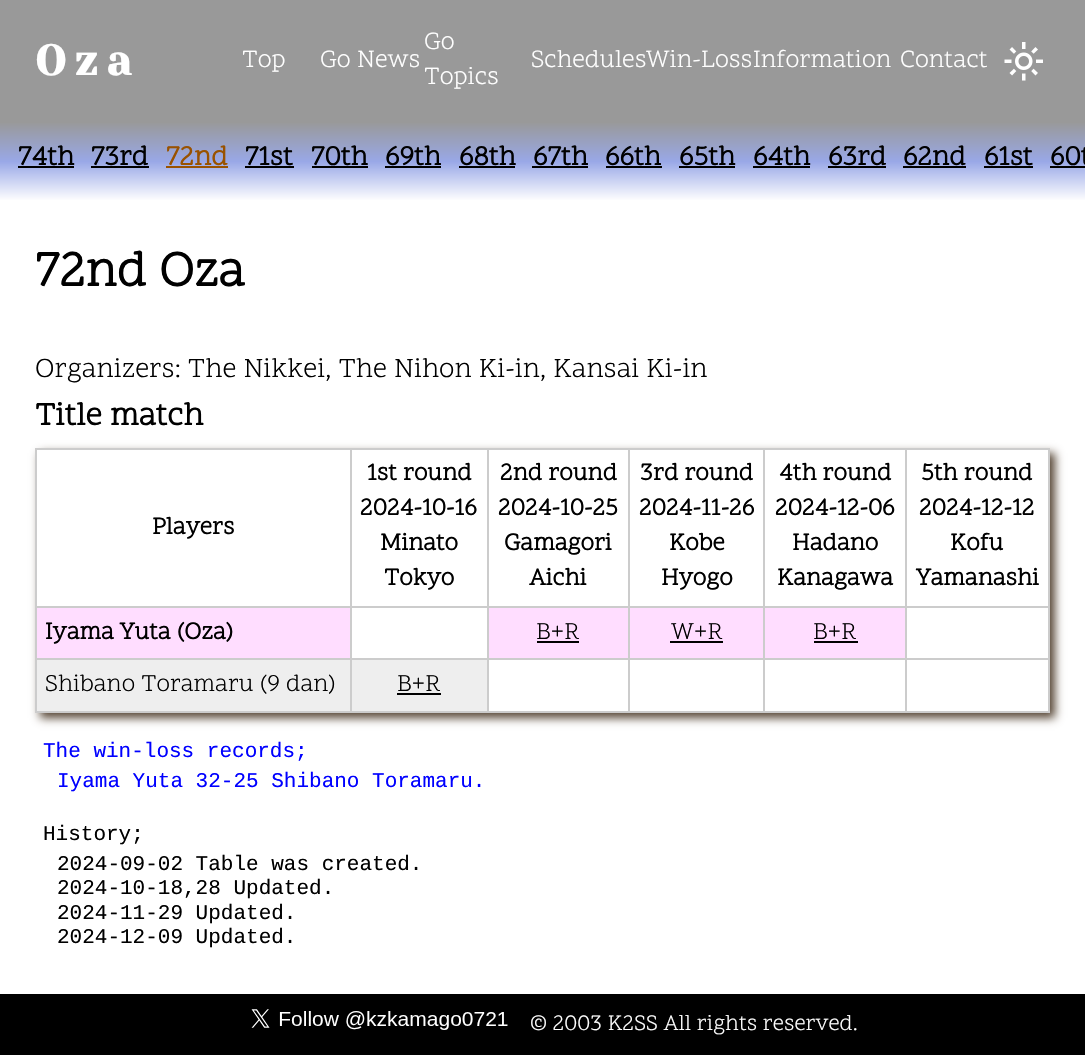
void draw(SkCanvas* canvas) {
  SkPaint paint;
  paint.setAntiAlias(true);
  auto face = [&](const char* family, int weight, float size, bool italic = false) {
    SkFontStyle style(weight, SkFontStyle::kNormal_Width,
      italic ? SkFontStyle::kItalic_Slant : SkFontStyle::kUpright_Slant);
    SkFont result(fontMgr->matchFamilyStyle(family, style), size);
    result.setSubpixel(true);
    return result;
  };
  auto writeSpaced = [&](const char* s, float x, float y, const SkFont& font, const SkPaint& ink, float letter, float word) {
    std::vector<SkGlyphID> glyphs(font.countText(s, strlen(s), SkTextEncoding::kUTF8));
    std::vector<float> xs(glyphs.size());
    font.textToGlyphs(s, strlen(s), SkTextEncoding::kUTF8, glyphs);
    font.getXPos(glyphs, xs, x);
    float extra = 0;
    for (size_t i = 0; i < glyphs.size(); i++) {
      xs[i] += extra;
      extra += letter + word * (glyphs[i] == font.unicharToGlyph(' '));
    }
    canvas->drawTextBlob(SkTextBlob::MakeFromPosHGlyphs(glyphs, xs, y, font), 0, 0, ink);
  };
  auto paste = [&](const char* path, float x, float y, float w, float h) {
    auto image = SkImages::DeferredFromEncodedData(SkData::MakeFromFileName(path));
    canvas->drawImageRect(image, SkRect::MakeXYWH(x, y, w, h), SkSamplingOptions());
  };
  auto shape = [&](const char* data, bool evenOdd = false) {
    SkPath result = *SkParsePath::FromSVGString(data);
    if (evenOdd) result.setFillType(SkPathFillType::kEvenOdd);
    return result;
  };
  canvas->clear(0xffffffff);
  paint.setColor(0xff999999);
  canvas->drawRect(SkRect::MakeXYWH(0, 0, 1085, 123), paint);
  paste("img/1.png", 1004, 42, 39, 39);
  {
    const SkColor colors[] = {0xff999999, 0xff99a8e7, 0xffffffff};
    const float stops[] = {0, 0.5f, 1};
    const SkPoint ends[] = {{785, 122}, {785, 201}};
    paint.setShader(SkGradientShader::MakeLinear(ends, colors, stops, 3, SkTileMode::kClamp));
    paint.setAlpha(255);
  }
  canvas->drawRect(SkRect::MakeXYWH(0, 123, 1085, 77), paint);
  paint.setShader(nullptr);
  {
    const struct { float x, y, w, h; SkColor color; } items[] = {
      {18, 166, 56, 2, 0xff000000},
      {91, 166, 58, 2, 0xff000000},
      {166, 166, 62, 2, 0xff995200},
      {245, 166, 49, 2, 0xff000000},
      {312, 166, 56, 2, 0xff000000},
      {385, 166, 56, 2, 0xff000000},
      {459, 166, 56, 2, 0xff000000},
      {532, 166, 56, 2, 0xff000000},
      {606, 166, 56, 2, 0xff000000},
      {679, 166, 56, 2, 0xff000000},
      {753, 166, 57, 2, 0xff000000},
      {828, 166, 58, 2, 0xff000000},
      {903, 166, 63, 2, 0xff000000},
      {984, 166, 49, 2, 0xff000000},
      {1050, 166, 35, 2, 0xff000000},
    };
    for (auto [x, y, w, h, color] : items) {
      paint.setColor(color);
      canvas->drawRect(SkRect::MakeXYWH(x, y, w, h), paint);
    }
  }
  canvas->save();
  canvas->clipPath(shape("M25 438H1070V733H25ZM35 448H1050V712H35Z", true), true);
  paint.setColor(0xff554433);
  paint.setMaskFilter(SkMaskFilter::MakeBlur(kNormal_SkBlurStyle, 4.5f));
  canvas->drawRect(SkRect::MakeXYWH(40, 453, 1015, 265), paint);
  paint.setMaskFilter(nullptr);
  canvas->restore();
  {
    const struct { float x, y, w, h; SkColor color; } items[] = {
      {35, 448, 1015, 2, 0xffcccccc},
      {35, 606, 1015, 2, 0xffcccccc},
      {35, 658, 1015, 2, 0xffcccccc},
      {1048, 658, 2, 54, 0xffcccccc},
      {1048, 606, 2, 54, 0xffcccccc},
      {1048, 448, 2, 159, 0xffcccccc},
      {35, 711, 1015, 2, 0xffcccccc},
      {35, 658, 2, 54, 0xffcccccc},
      {35, 606, 2, 54, 0xffcccccc},
      {35, 448, 2, 159, 0xffcccccc},
      {37, 608, 313, 50, 0xffffddff},
      {489, 608, 139, 50, 0xffffddff},
      {537, 641, 42, 2, 0xff000000},
      {630, 608, 133, 50, 0xffffddff},
      {670, 641, 53, 2, 0xff000000},
      {765, 608, 140, 50, 0xffffddff},
      {814, 641, 44, 2, 0xff000000},
      {37, 660, 313, 51, 0xffeeeeee},
      {352, 660, 135, 51, 0xffeeeeee},
      {350, 448, 2, 264, 0xffcccccc},
      {397, 693, 44, 2, 0xff000000},
      {487, 448, 2, 264, 0xffcccccc},
      {628, 448, 2, 264, 0xffcccccc},
      {763, 448, 2, 264, 0xffcccccc},
      {905, 448, 2, 264, 0xffcccccc},
      {0, 994, 1085, 61, 0xff000000},
    };
    for (auto [x, y, w, h, color] : items) {
      paint.setColor(color);
      canvas->drawRect(SkRect::MakeXYWH(x, y, w, h), paint);
    }
  }
  paste("img/2.png", 251, 1009, 257, 21);
  auto f0 = face("Yeseva One", 700, 42);
  paint.setColor(0xffffffff);
  writeSpaced("Oza", 35, 75, f0, paint, 8.5f, 0);
  auto f1 = face("Scope One", 400, 25.25f);
  {
    const struct { const char* s; float x, y; } items[] = {
      {"Top", 242, 67},
      {"Go News", 320, 67},
      {"Go", 424, 49},
      {"Topics", 424, 84},
      {"Schedules", 531, 67},
      {"Win-Loss", 646, 67},
      {"Information", 753, 67},
      {"Contact", 900, 67},
    };
    for (auto [s, x, y] : items) {
      canvas->drawString(s, x, y, f1, paint);
    }
  }
  auto f2 = face("Scope One", 700, 28);
  paint.setColor(0xff000000);
  canvas->drawString("74th", 18, 165, f2, paint);
  canvas->drawString("73rd", 91, 165, f2, paint);
  paint.setColor(0xff995200);
  canvas->drawString("72nd", 166, 165, f2, paint);
  paint.setColor(0xff000000);
  {
    const struct { const char* s; float x, y; } items[] = {
      {"71st", 245, 165},
      {"70th", 311, 165},
      {"69th", 385, 165},
      {"68th", 459, 165},
      {"67th", 533, 165},
      {"66th", 605, 165},
      {"65th", 679, 165},
      {"64th", 753, 165},
      {"63rd", 828, 165},
      {"62nd", 903, 165},
      {"61st", 984, 165},
      {"60t", 1050, 165},
    };
    for (auto [s, x, y] : items) {
      canvas->drawString(s, x, y, f2, paint);
    }
  }
  auto f3 = face("Scope One", 700, 50.5f);
  canvas->drawString("72nd Oza", 35, 286, f3, paint);
  auto f4 = face("Scope One", 400, 28);
  canvas->drawString("Organizers: The Nikkei, The Nihon Ki-in, Kansai Ki-in", 35, 377, f4, paint);
  auto f5 = face("Scope One", 700, 32.75f);
  canvas->drawString("Title match", 35, 425, f5, paint);
  auto f6 = face("Scope One", 700, 24.5f);
  {
    const struct { const char* s; float x, y; } items[] = {
      {"Players", 152, 534},
      {"1st round", 367, 480},
      {"2024-10-16", 360, 515},
      {"Minato", 380, 550},
      {"Tokyo", 384, 585},
      {"2nd round", 500, 480},
      {"2024-10-25", 498, 515},
      {"Gamagori", 504, 550},
      {"Aichi", 529, 585},
      {"3rd round", 640, 480},
      {"2024-11-26", 639, 515},
      {"Kobe", 669, 550},
      {"Hyogo", 661, 585},
      {"4th round", 779, 480},
      {"2024-12-06", 775, 515},
      {"Hadano", 792, 550},
      {"Kanagawa", 777, 585},
      {"5th round", 921, 480},
      {"2024-12-12", 919, 515},
      {"Kofu", 950, 550},
      {"Yamanashi", 916, 585},
      {"Iyama Yuta (Oza)", 45, 639},
    };
    for (auto [s, x, y] : items) {
      canvas->drawString(s, x, y, f6, paint);
    }
  }
  auto f7 = face("Scope One", 400, 24.5f);
  {
    const struct { const char* s; float x, y; } items[] = {
      {"B+R", 536, 639},
      {"W+R", 671, 639},
      {"B+R", 813, 639},
      {"Shibano Toramaru (9 dan)", 45, 691},
      {"B+R", 397, 691},
    };
    for (auto [s, x, y] : items) {
      canvas->drawString(s, x, y, f7, paint);
    }
  }
  auto f8 = face("Liberation Mono", 400, 21);
  paint.setColor(0xff0000ff);
  canvas->drawString("The win-loss records;", 43, 757, f8, paint);
  canvas->drawString("Iyama Yuta 32-25 Shibano Toramaru.", 57, 787, f8, paint);
  paint.setColor(0xff000000);
  {
    const struct { const char* s; float x, y; } items[] = {
      {"History;", 43, 840},
      {"2024-09-02 Table was created.", 57, 870},
      {"2024-10-18,28 Updated.", 57, 894},
      {"2024-11-29 Updated.", 57, 919},
      {"2024-12-09 Updated.", 57, 943},
    };
    for (auto [s, x, y] : items) {
      canvas->drawString(s, x, y, f8, paint);
    }
  }
  auto f9 = face("Scope One", 400, 22.4f);
  paint.setColor(0xffffffff);
  canvas->drawString("© 2003 K2SS All rights reserved.", 530, 1030, f9, paint);
}
